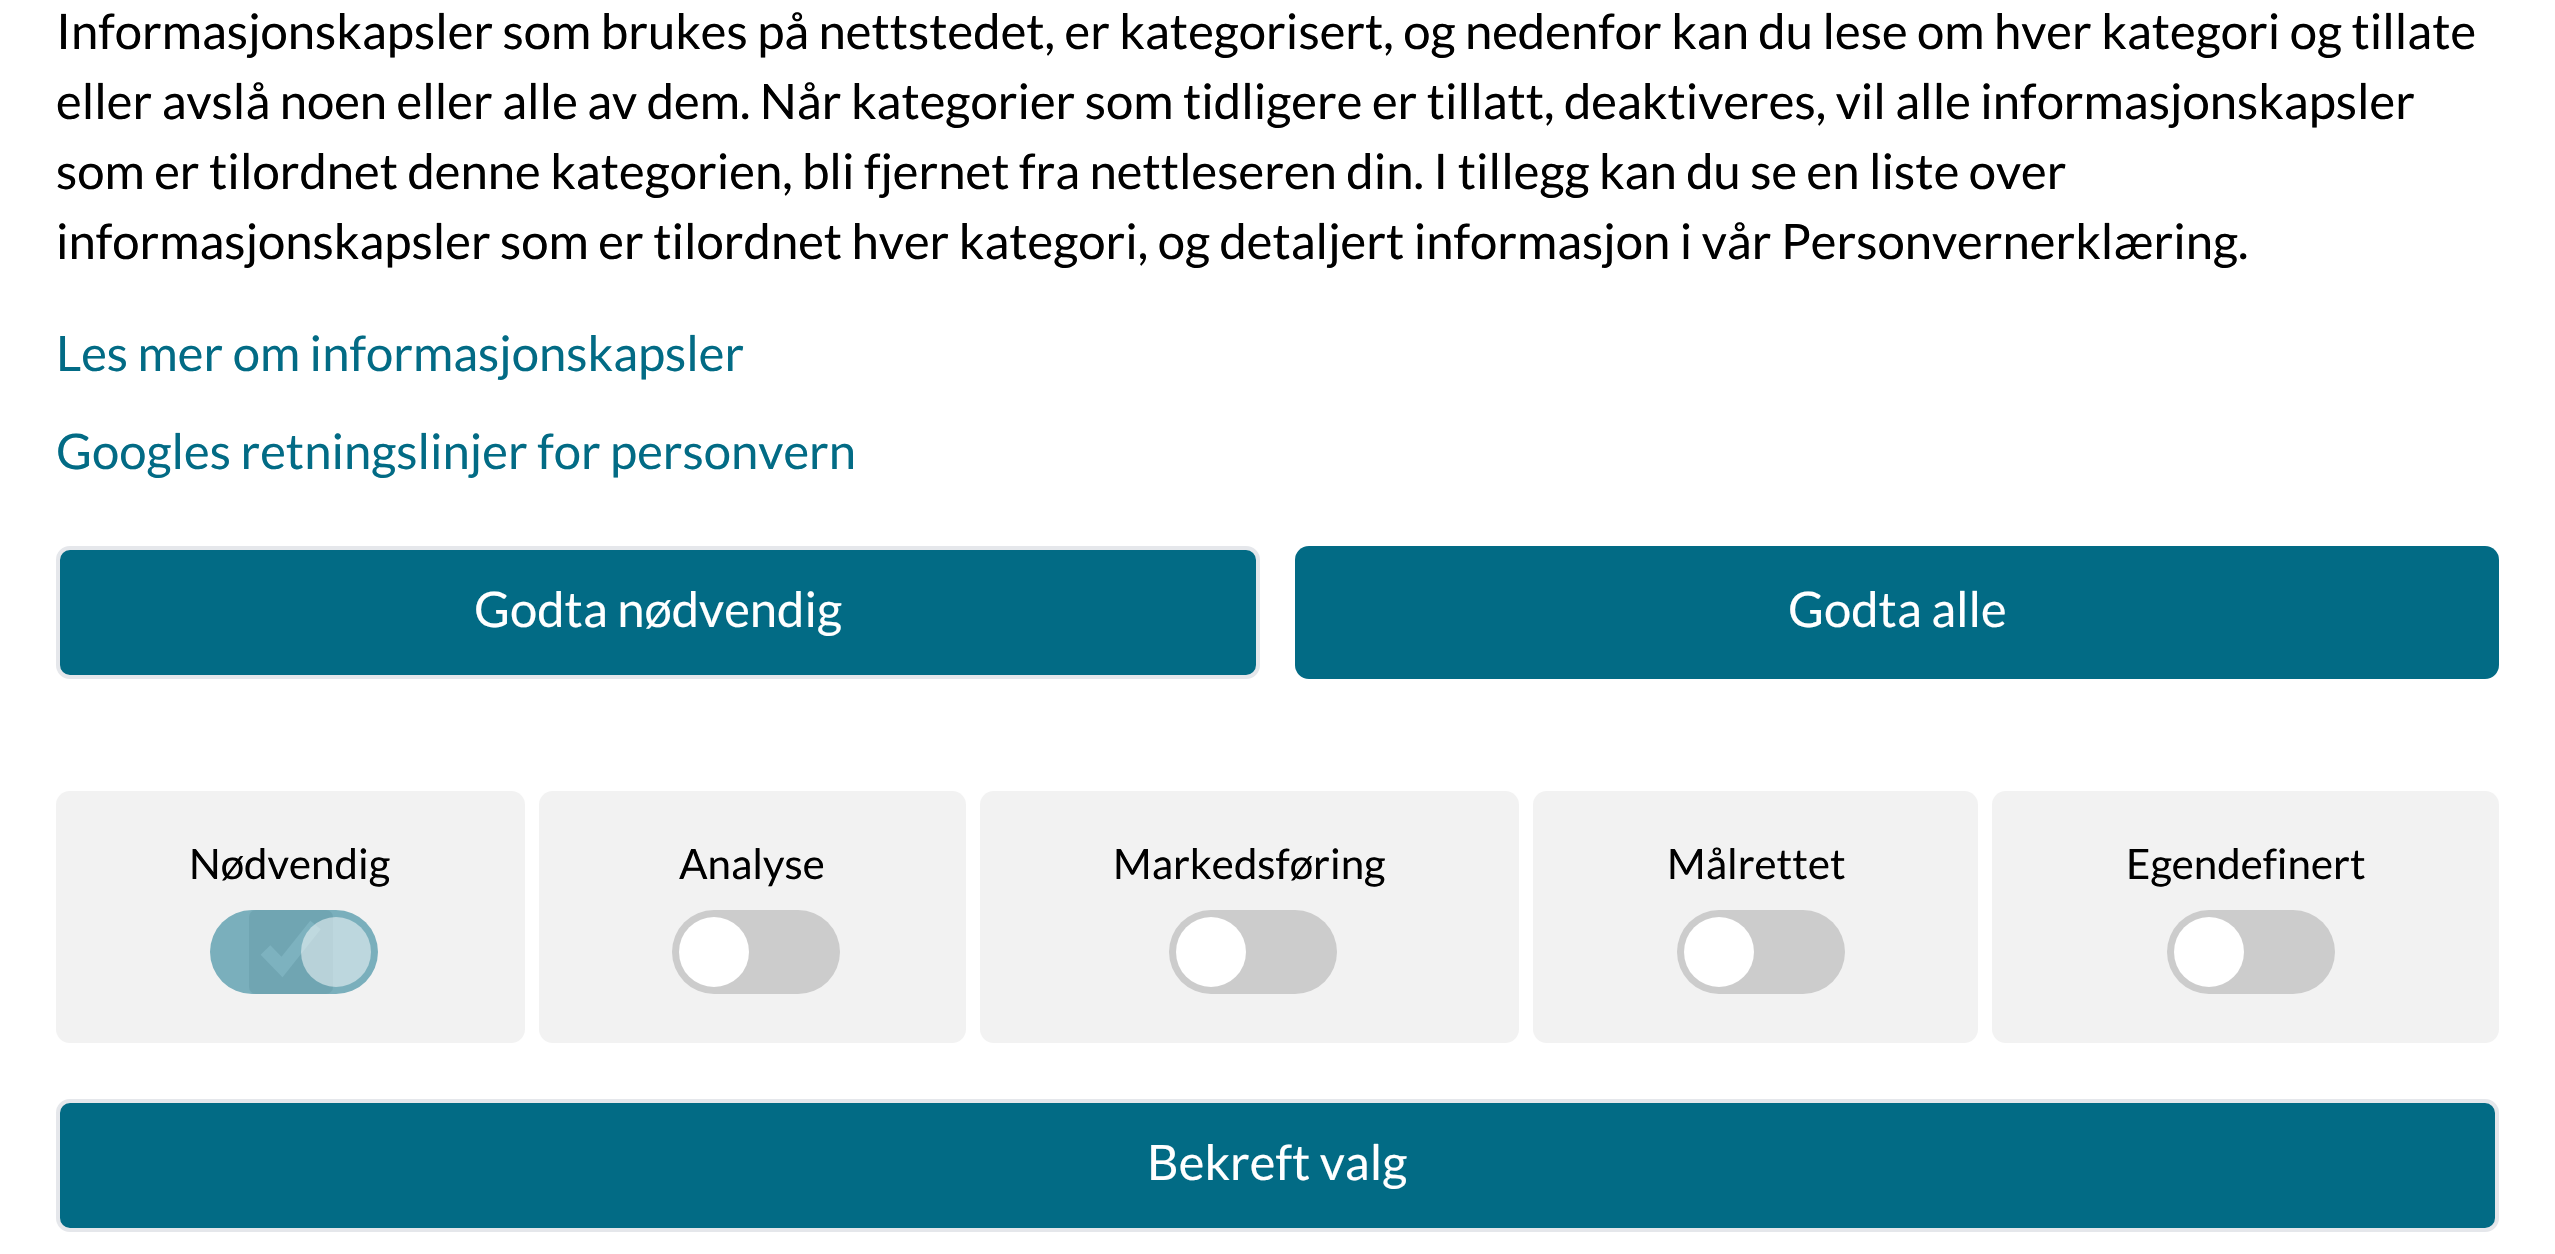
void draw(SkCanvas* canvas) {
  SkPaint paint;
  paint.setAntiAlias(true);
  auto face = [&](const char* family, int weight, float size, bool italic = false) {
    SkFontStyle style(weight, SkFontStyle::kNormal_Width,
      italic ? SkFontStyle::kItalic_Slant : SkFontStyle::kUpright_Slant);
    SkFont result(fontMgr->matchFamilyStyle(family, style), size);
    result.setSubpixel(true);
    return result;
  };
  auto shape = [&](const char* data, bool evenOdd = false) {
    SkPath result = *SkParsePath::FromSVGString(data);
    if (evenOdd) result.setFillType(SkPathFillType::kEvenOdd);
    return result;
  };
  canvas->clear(0xffffffff);
  paint.setColor(0xff026b85);
  canvas->drawRoundRect(SkRect::MakeXYWH(58, 548, 1200, 129), 12, 12, paint);
  paint.setStroke(true);
  paint.setStrokeWidth(4);
  paint.setColor(0xffe5e7eb);
  canvas->drawRoundRect(SkRect::MakeXYWH(58, 548, 1200, 129), 12, 12, paint);
  paint.setStroke(false);
  paint.setColor(0xff026b85);
  canvas->drawRoundRect(SkRect::MakeXYWH(1295, 546, 1204, 133), 14, 14, paint);
  paint.setColor(0xfff2f2f2);
  canvas->drawRoundRect(SkRect::MakeXYWH(56, 791, 469, 252), 14, 14, paint);
  paint.setColor(0xffdfdfdf);
  canvas->drawRoundRect(SkRect::MakeXYWH(249, 910, 84, 84), 7, 7, paint);
  paint.setStroke(true);
  paint.setStrokeWidth(13.4f);
  paint.setColor(0xfff9f9f9);
  canvas->drawPath(shape("M265.5 950L282 967L315.5 925"), paint);
  paint.setStroke(false);
  paint.setColor(0x80026b85);
  canvas->drawRoundRect(SkRect::MakeXYWH(210, 910, 168, 84), 42, 42, paint);
  paint.setColor(0x80ffffff);
  canvas->drawCircle(336, 952, 35, paint);
  paint.setColor(0xfff2f2f2);
  canvas->drawRoundRect(SkRect::MakeXYWH(539, 791, 427, 252), 14, 14, paint);
  paint.setColor(0xffcccccc);
  canvas->drawRoundRect(SkRect::MakeXYWH(672, 910, 168, 84), 42, 42, paint);
  paint.setColor(0xffffffff);
  canvas->drawCircle(714, 952, 35, paint);
  paint.setColor(0xfff2f2f2);
  canvas->drawRoundRect(SkRect::MakeXYWH(980, 791, 539, 252), 14, 14, paint);
  paint.setColor(0xffcccccc);
  canvas->drawRoundRect(SkRect::MakeXYWH(1169, 910, 168, 84), 42, 42, paint);
  paint.setColor(0xffffffff);
  canvas->drawCircle(1211, 952, 35, paint);
  paint.setColor(0xfff2f2f2);
  canvas->drawRoundRect(SkRect::MakeXYWH(1533, 791, 445, 252), 14, 14, paint);
  paint.setStroke(true);
  paint.setStrokeWidth(4);
  paint.setColor(0xff767676);
  canvas->drawRoundRect(SkRect::MakeXYWH(1717, 912, 80, 80), 5, 5, paint);
  paint.setStroke(false);
  paint.setColor(0xffcccccc);
  canvas->drawRoundRect(SkRect::MakeXYWH(1677, 910, 168, 84), 42, 42, paint);
  paint.setColor(0xffffffff);
  canvas->drawCircle(1719, 952, 35, paint);
  paint.setColor(0xfff2f2f2);
  canvas->drawRoundRect(SkRect::MakeXYWH(1992, 791, 507, 252), 14, 14, paint);
  paint.setStroke(true);
  paint.setColor(0xff767676);
  canvas->drawRoundRect(SkRect::MakeXYWH(2207, 912, 80, 80), 5, 5, paint);
  paint.setStroke(false);
  paint.setColor(0xffcccccc);
  canvas->drawRoundRect(SkRect::MakeXYWH(2167, 910, 168, 84), 42, 42, paint);
  paint.setColor(0xffffffff);
  canvas->drawCircle(2209, 952, 35, paint);
  paint.setColor(0xff026b85);
  canvas->drawRoundRect(SkRect::MakeXYWH(58, 1101, 2439, 129), 12, 12, paint);
  paint.setStroke(true);
  paint.setColor(0xffe5e7eb);
  canvas->drawRoundRect(SkRect::MakeXYWH(58, 1101, 2439, 129), 12, 12, paint);
  auto f0 = face("Lato", 400, 49);
  paint.setStroke(false);
  paint.setColor(0xff000000);
  {
    const struct { const char* s; float x, y; } items[] = {
      {"Informasjonskapsler som brukes på nettstedet, er kategorisert, og nedenfor kan du lese om hver kategori og tillate", 56, 49},
      {"eller avslå noen eller alle av dem. Når kategorier som tidligere er tillatt, deaktiveres, vil alle informasjonskapsler", 56, 119},
      {"som er tilordnet denne kategorien, bli fjernet fra nettleseren din. I tillegg kan du se en liste over", 56, 189},
      {"informasjonskapsler som er tilordnet hver kategori, og detaljert informasjon i vår Personvernerklæring.", 56, 259},
    };
    for (auto [s, x, y] : items) {
      canvas->drawString(s, x, y, f0, paint);
    }
  }
  paint.setColor(0xff026b85);
  canvas->drawString("Les mer om informasjonskapsler", 56, 371, f0, paint);
  canvas->drawString("Googles retningslinjer for personvern", 56, 469, f0, paint);
  paint.setColor(0xffffffff);
  canvas->drawString("Godta nødvendig", 474, 627, f0, paint);
  canvas->drawString("Godta alle", 1788, 627, f0, paint);
  auto f1 = face("Lato", 400, 42);
  paint.setColor(0xff000000);
  {
    const struct { const char* s; float x, y; } items[] = {
      {"Nødvendig", 189, 879},
      {"Analyse", 679, 879},
      {"Markedsføring", 1113, 879},
      {"Målrettet", 1667, 879},
      {"Egendefinert", 2126, 879},
    };
    for (auto [s, x, y] : items) {
      canvas->drawString(s, x, y, f1, paint);
    }
  }
  paint.setColor(0xffffffff);
  canvas->drawString("Bekreft valg", 1147, 1180, f0, paint);
}
